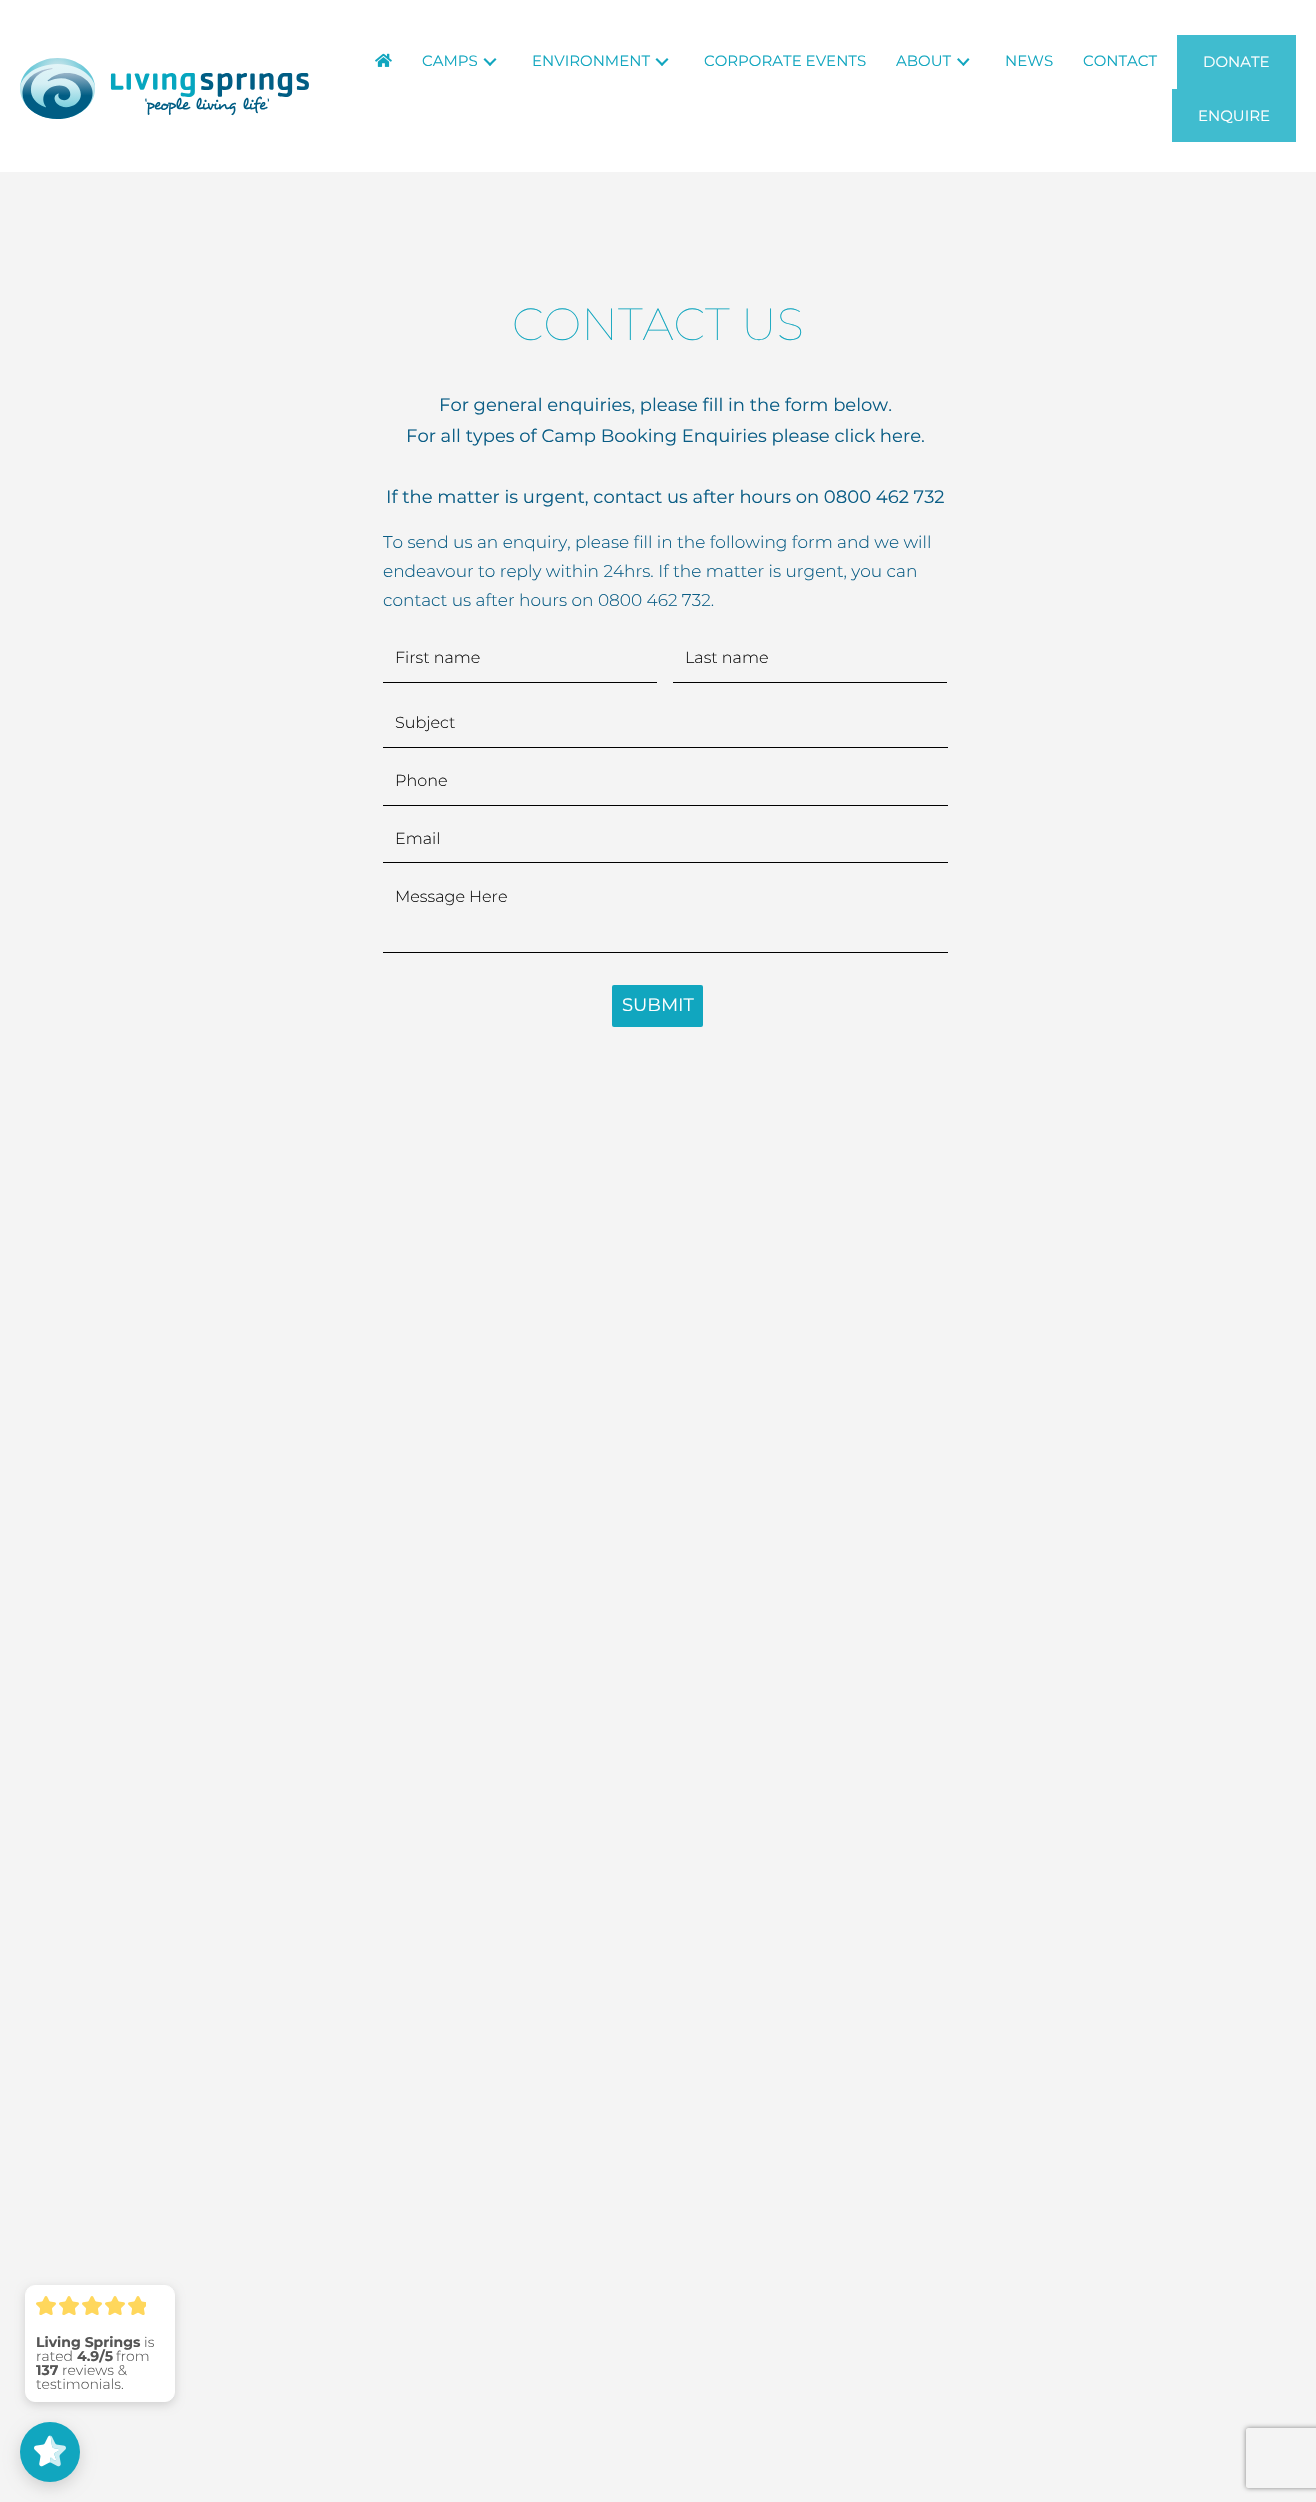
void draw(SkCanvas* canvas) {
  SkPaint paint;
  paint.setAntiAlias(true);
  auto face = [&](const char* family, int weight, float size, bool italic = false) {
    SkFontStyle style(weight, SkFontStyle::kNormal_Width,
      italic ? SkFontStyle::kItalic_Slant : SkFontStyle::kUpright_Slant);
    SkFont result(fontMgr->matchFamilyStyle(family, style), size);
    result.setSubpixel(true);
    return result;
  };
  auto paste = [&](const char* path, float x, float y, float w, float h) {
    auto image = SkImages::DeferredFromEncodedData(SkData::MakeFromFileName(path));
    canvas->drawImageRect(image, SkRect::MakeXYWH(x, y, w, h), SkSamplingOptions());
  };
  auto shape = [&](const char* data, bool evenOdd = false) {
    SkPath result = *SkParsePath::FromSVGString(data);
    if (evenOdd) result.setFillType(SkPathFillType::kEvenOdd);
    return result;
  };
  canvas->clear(0xffffffff);
  paste("img/1.png", 20, 58, 289, 61);
  paste("img/2.png", 375, 53, 17, 14);
  paint.setColor(0xff11a6bf);
  canvas->drawPath(shape("M495 58L496.5 59.5L490 66L488.5 64.5Z"), paint);
  canvas->drawPath(shape("M485 58L491.5 64.5L490 66L483.5 59.5Z"), paint);
  canvas->drawPath(shape("M667 58L668.5 59.5L662 66L660.5 64.5Z"), paint);
  canvas->drawPath(shape("M657 58L663.5 64.5L662 66L655.5 59.5Z"), paint);
  canvas->drawPath(shape("M968 58L969.5 59.5L963.5 66L962 64.5Z"), paint);
  canvas->drawPath(shape("M958.5 58L964.5 64.5L963.5 66L957 59.5Z"), paint);
  {
    const struct { float x, y, w, h; SkColor color; } items[] = {
      {1177, 35, 119, 54, 0xff40bccf},
      {1172, 89, 124, 53, 0xff40bccf},
      {0, 172, 1316, 2330, 0xfff4f4f4},
      {383, 682, 274, 1, 0xff000000},
      {673, 682, 274, 1, 0xff000000},
      {383, 747, 565, 1, 0xff000000},
      {383, 805, 565, 1, 0xff000000},
      {383, 862, 565, 1, 0xff000000},
      {383, 952, 565, 1, 0xff000000},
    };
    for (auto [x, y, w, h, color] : items) {
      paint.setColor(color);
      canvas->drawRect(SkRect::MakeXYWH(x, y, w, h), paint);
    }
  }
  paint.setColor(0xff11a6bf);
  canvas->drawRoundRect(SkRect::MakeXYWH(612, 985, 91, 42), 2, 2, paint);
  paint.setColor(0x26000000);
  paint.setMaskFilter(SkMaskFilter::MakeBlur(kNormal_SkBlurStyle, 5));
  canvas->drawRoundRect(SkRect::MakeXYWH(25, 2288, 150, 117), 10, 10, paint);
  paint.setMaskFilter(nullptr);
  paint.setColor(0xffffffff);
  canvas->drawRoundRect(SkRect::MakeXYWH(25.5f, 2285.5f, 149, 116), 9.5f, 9.5f, paint);
  paint.setStroke(true);
  paint.setStrokeWidth(1);
  canvas->drawRoundRect(SkRect::MakeXYWH(25.5f, 2285.5f, 149, 116), 9.5f, 9.5f, paint);
  paste("img/3.png", 36, 2296, 20, 19);
  paste("img/3.png", 59, 2296, 20, 19);
  paste("img/3.png", 82, 2296, 20, 19);
  paste("img/3.png", 105, 2296, 20, 19);
  paste("img/4.png", 128, 2296, 18, 19);
  paint.setStroke(false);
  paint.setColor(0x26000000);
  paint.setMaskFilter(SkMaskFilter::MakeBlur(kNormal_SkBlurStyle, 7.5f));
  canvas->drawRoundRect(SkRect::MakeXYWH(20, 2427, 60, 60), 30, 30, paint);
  paint.setMaskFilter(nullptr);
  paint.setColor(0xff11a6bf);
  canvas->drawCircle(50, 2452, 30, paint);
  paste("img/5.png", 34, 2435, 32, 32);
  canvas->save();
  canvas->clipPath(shape("M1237 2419H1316V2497H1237ZM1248 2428H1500C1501 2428 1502 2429 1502 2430V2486C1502 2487 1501 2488 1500 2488H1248C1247 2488 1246 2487 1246 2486V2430C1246 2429 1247 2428 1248 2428Z", true), true);
  paint.setColor(0xff808080);
  paint.setMaskFilter(SkMaskFilter::MakeBlur(kNormal_SkBlurStyle, 2.5f));
  canvas->drawRoundRect(SkRect::MakeXYWH(1246, 2428, 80, 60), 2, 2, paint);
  paint.setMaskFilter(nullptr);
  canvas->restore();
  auto f0 = face("Montserrat", 400, 15);
  paint.setColor(0xff11a6bf);
  {
    const struct { const char* s; float x, y; } items[] = {
      {"CAMPS", 422, 66},
      {"ENVIRONMENT", 532, 66},
      {"CORPORATE EVENTS", 704, 66},
      {"ABOUT", 896, 66},
      {"NEWS", 1005, 66},
      {"CONTACT", 1083, 66},
    };
    for (auto [s, x, y] : items) {
      canvas->drawString(s, x, y, f0, paint);
    }
  }
  paint.setColor(0xffffffff);
  canvas->drawString("DONATE", 1203, 67, f0, paint);
  canvas->drawString("ENQUIRE", 1198, 121, f0, paint);
  auto f1 = face("Montserrat", 100, 45);
  paint.setColor(0xff11a6bf);
  canvas->drawString("CONTACT US", 512, 340, f1, paint);
  auto f2 = face("Montserrat", 400, 18);
  paint.setColor(0xff0a5d85);
  {
    const struct { const char* s; float x, y; } items[] = {
      {"For general enquiries, please fill in the form below.", 439, 411},
      {"For all types of Camp Booking Enquiries please click here.", 406, 442},
      {"If the matter is urgent, contact us after hours on 0800 462 732", 386, 503},
    };
    for (auto [s, x, y] : items) {
      canvas->drawString(s, x, y, f2, paint);
    }
  }
  auto f3 = face("Montserrat", 300, 17);
  {
    const struct { const char* s; float x, y; } items[] = {
      {"To send us an enquiry, please fill in the following form and we will", 383, 548},
      {"endeavour to reply within 24hrs. If the matter is urgent, you can", 383, 577},
      {"contact us after hours on 0800 462 732.", 383, 606},
    };
    for (auto [s, x, y] : items) {
      canvas->drawString(s, x, y, f3, paint);
    }
  }
  auto f4 = face("Montserrat", 300, 16);
  paint.setColor(0xff0f0f0f);
  {
    const struct { const char* s; float x, y; } items[] = {
      {"First name", 395, 663},
      {"Last name", 685, 663},
      {"Subject", 395, 728},
      {"Phone", 395, 786},
      {"Email", 395, 844},
      {"Message Here", 395, 902},
    };
    for (auto [s, x, y] : items) {
      canvas->drawString(s, x, y, f4, paint);
    }
  }
  paint.setColor(0xffffffff);
  canvas->drawString("SUBMIT", 622, 1011, f2, paint);
  auto f5 = face("Montserrat", 700, 14);
  paint.setColor(0xff555555);
  canvas->drawString("Living Springs", 36, 2347, f5, paint);
  auto f6 = face("Montserrat", 300, 14);
  canvas->drawString("is", 144, 2347, f6, paint);
  canvas->drawString("rated", 36, 2361, f6, paint);
  canvas->drawString("4.9/5", 77, 2361, f5, paint);
  canvas->drawString("from", 116, 2361, f6, paint);
  canvas->drawString("137", 36, 2375, f5, paint);
  canvas->drawString("reviews &", 62, 2375, f6, paint);
  canvas->drawString("testimonials.", 36, 2389, f6, paint);
}
